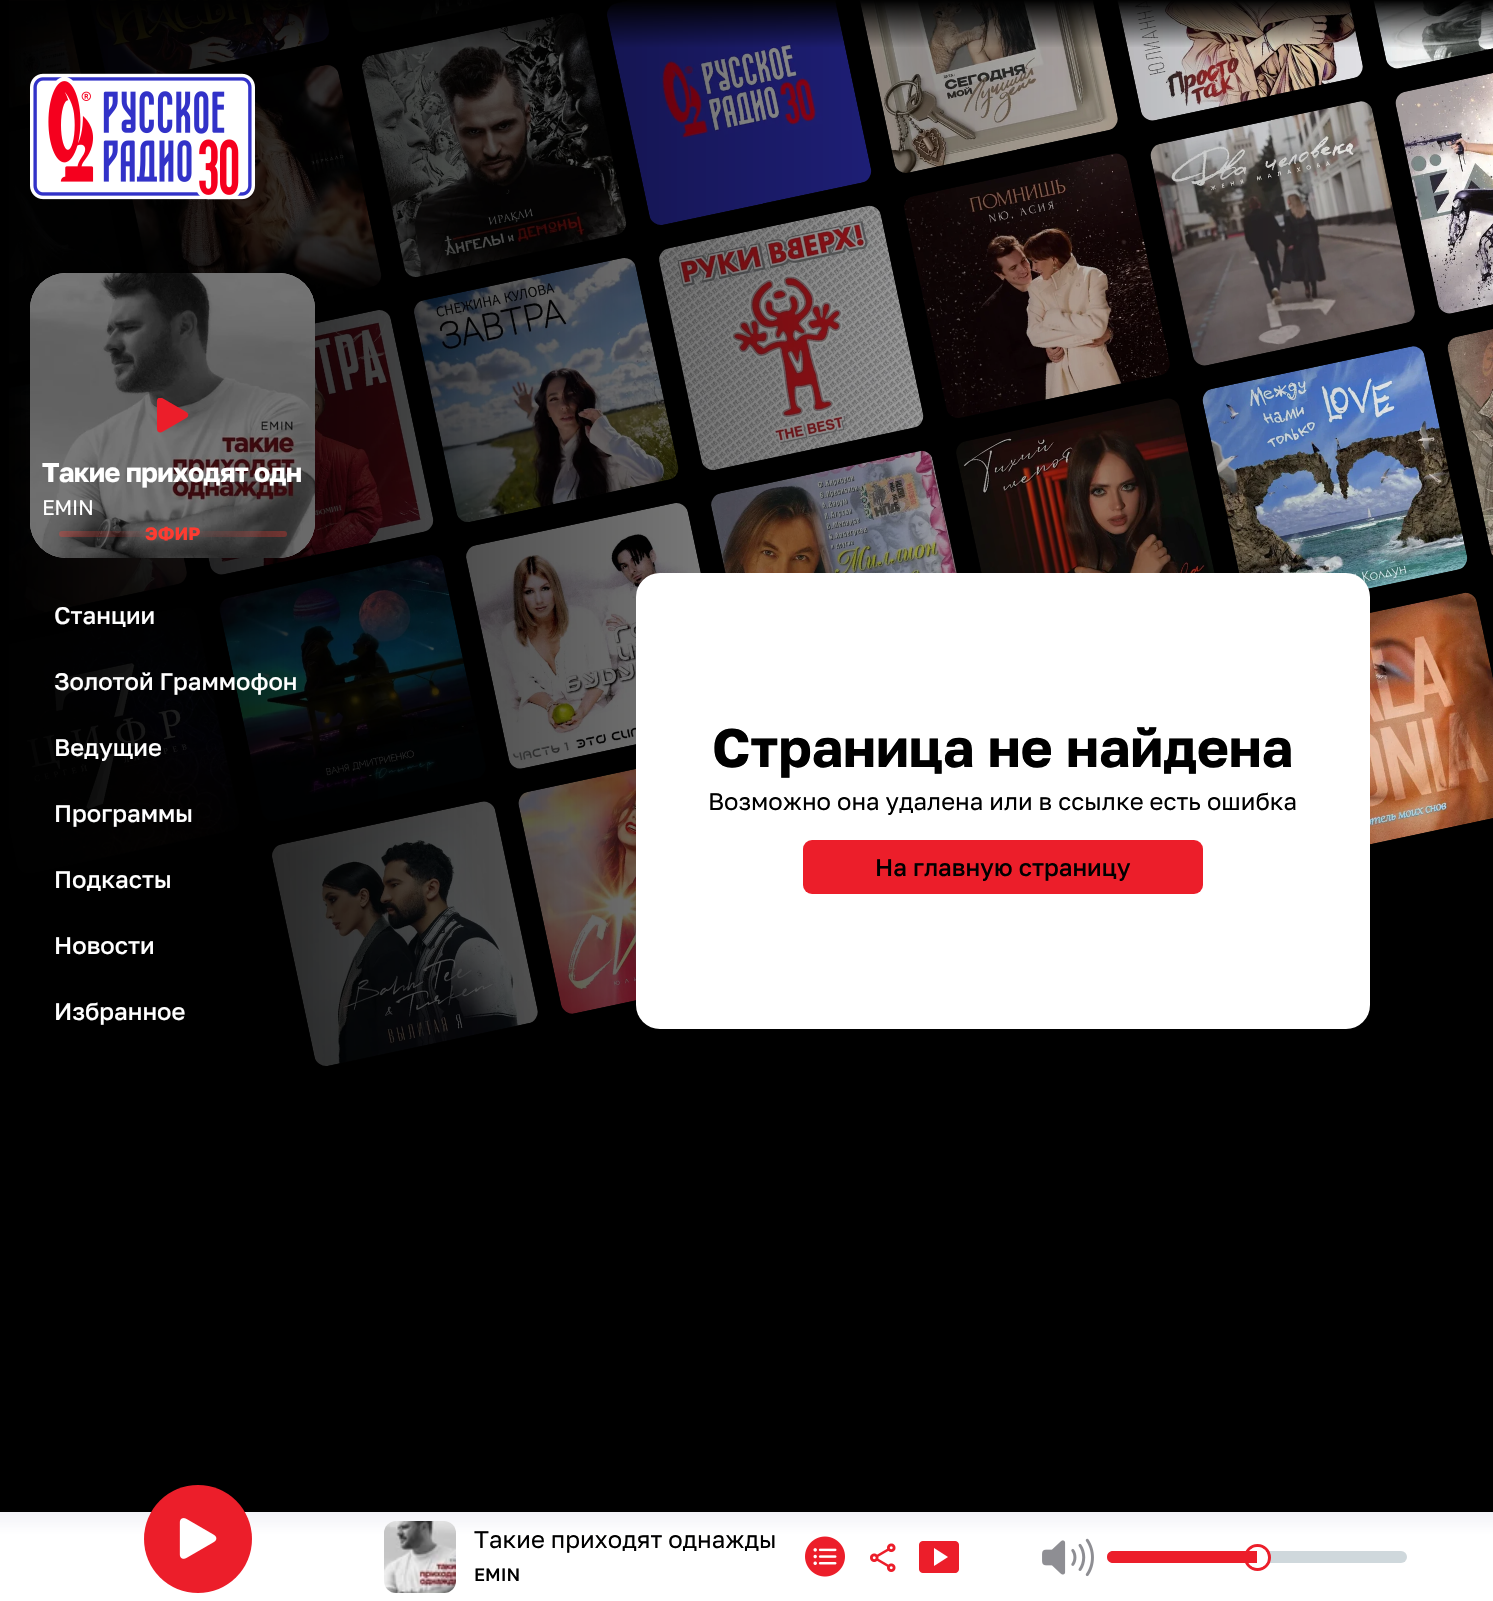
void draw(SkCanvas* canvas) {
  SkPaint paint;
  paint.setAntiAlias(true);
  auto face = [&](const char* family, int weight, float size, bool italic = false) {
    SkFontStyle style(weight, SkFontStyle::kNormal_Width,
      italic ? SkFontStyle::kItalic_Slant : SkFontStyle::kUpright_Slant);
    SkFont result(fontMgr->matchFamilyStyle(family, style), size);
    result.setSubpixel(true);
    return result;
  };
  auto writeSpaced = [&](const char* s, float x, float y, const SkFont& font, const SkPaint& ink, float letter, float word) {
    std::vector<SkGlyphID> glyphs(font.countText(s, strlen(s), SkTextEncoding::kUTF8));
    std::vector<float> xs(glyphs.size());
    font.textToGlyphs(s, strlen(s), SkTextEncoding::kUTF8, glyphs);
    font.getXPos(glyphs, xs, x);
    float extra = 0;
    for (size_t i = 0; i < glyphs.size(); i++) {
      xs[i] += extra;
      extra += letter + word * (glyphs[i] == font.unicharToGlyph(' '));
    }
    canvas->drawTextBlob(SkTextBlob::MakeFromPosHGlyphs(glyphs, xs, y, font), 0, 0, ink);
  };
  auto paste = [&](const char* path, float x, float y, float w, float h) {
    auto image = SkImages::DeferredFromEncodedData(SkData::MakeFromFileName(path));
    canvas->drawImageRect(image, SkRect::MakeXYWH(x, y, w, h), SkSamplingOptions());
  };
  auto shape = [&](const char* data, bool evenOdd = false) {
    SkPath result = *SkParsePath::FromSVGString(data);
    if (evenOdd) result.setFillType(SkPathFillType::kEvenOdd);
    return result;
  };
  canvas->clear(0xff000000);
  paste("img/1.png", 9, 0, 72, 108);
  paste("img/2.png", 90, 0, 239, 74);
  paste("img/3.png", 347, 0, 166, 32);
  paste("img/9.png", 132, 65, 250, 234);
  paste("img/10.png", 362, 13, 265, 264);
  paste("img/4.png", 607, 0, 265, 225);
  paste("img/5.png", 859, 0, 259, 173);
  paste("img/6.png", 1117, 0, 246, 121);
  paste("img/7.png", 1373, 0, 120, 69);
  paste("img/8.png", 9, 128, 115, 236);
  paste("img/16.png", 208, 310, 226, 265);
  paste("img/17.png", 414, 258, 265, 264);
  paste("img/11.png", 659, 205, 265, 265);
  paste("img/12.png", 904, 153, 266, 265);
  paste("img/13.png", 1150, 101, 265, 265);
  paste("img/14.png", 1395, 73, 98, 241);
  paste("img/15.png", 9, 384, 178, 236);
  paste("img/18.png", 711, 450, 246, 123);
  paste("img/19.png", 956, 398, 259, 175);
  paste("img/20.png", 1202, 346, 266, 243);
  paste("img/21.png", 1447, 329, 46, 227);
  paste("img/22.png", 9, 608, 230, 265);
  paste("img/23.png", 219, 555, 267, 266);
  paste("img/24.png", 466, 503, 235, 266);
  paste("img/25.png", 1370, 592, 123, 253);
  paste("img/26.png", 272, 801, 266, 265);
  paste("img/27.png", 518, 769, 118, 245);
  {
    const SkColor colors[] = {0xff000000, 0x00000000};
    const float stops[] = {0, 1};
    const SkPoint ends[] = {{747, 0}, {747, 48}};
    paint.setShader(SkGradientShader::MakeLinear(ends, colors, stops, 2, SkTileMode::kClamp));
    paint.setAlpha(255);
  }
  canvas->drawRect(SkRect::MakeXYWH(9, 0, 1484, 47), paint);
  {
    const SkColor colors[] = {0xff000000, 0x00000000};
    const float stops[] = {0, 1};
    const SkPoint ends[] = {{0, 801}, {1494, 801}};
    paint.setShader(SkGradientShader::MakeLinear(ends, colors, stops, 2, SkTileMode::kClamp));
    paint.setAlpha(255);
  }
  canvas->drawRect(SkRect::MakeXYWH(9, 1, 1453, 1065), paint);
  paste("img/28.png", 30, 73, 225, 127);
  paint.setShader(nullptr);
  paint.setColor(0xff616161);
  canvas->drawRoundRect(SkRect::MakeXYWH(30, 273, 285, 285), 36, 36, paint);
  paste("img/29.png", 30, 273, 285, 285);
  paint.setColor(0x80000000);
  canvas->drawRoundRect(SkRect::MakeXYWH(30, 273, 285, 285), 36, 36, paint);
  paste("img/30.png", 156, 398, 33, 35);
  paint.setColor(0xffffffff);
  canvas->drawRoundRect(SkRect::MakeXYWH(636, 573, 734, 456), 24, 24, paint);
  paint.setColor(0xffec1e2a);
  canvas->drawRoundRect(SkRect::MakeXYWH(803, 840, 400, 54), 9, 9, paint);
  {
    const SkColor colors[] = {0xffffffff, 0xffffffff, 0xfff2f2f7};
    const float stops[] = {0, 0.75f, 1};
    const SkPoint ends[] = {{747, 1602}, {747, 1512}};
    paint.setShader(SkGradientShader::MakeLinear(ends, colors, stops, 3, SkTileMode::kClamp));
    paint.setAlpha(255);
  }
  canvas->drawRect(SkRect::MakeXYWH(0, 1512, 1493, 89), paint);
  paint.setShader(nullptr);
  paint.setColor(0xffec1e2a);
  canvas->drawCircle(198, 1539, 54, paint);
  paste("img/31.png", 179, 1518, 38, 41);
  paste("img/32.png", 384, 1521, 72, 72);
  paste("img/33.png", 805, 1536, 40, 41);
  paste("img/34.png", 870, 1543, 26, 29);
  paste("img/35.png", 919, 1541, 40, 32);
  paste("img/36.png", 1042, 1538, 52, 39);
  paint.setColor(0xffcfd8dc);
  canvas->drawRoundRect(SkRect::MakeXYWH(1107, 1551, 300, 12), 6, 6, paint);
  paint.setStroke(true);
  paint.setStrokeWidth(3);
  paint.setColor(0xffec1e2a);
  canvas->drawCircle(1257.5f, 1557.5f, 12, paint);
  paint.setStroke(false);
  paint.setColor(0xffffffff);
  canvas->drawCircle(1257.5f, 1557.5f, 10.5f, paint);
  paint.setColor(0xffec1e2a);
  canvas->drawPath(shape("M1113 1551H1257V1563H1113C1109.5 1563 1107 1560.5 1107 1557C1107 1553.5 1109.5 1551 1113 1551Z"), paint);
  auto f0 = face("Golos Text", 700, 27);
  paint.setColor(0xffffffff);
  writeSpaced("Такие приходят одн", 42, 482, f0, paint, -0.7f, 0);
  auto f1 = face("Golos Text", 400, 21);
  writeSpaced("EMIN", 42, 515, f1, paint, -0.5f, 0);
  auto f2 = face("Golos Text", 700, 18);
  paint.setColor(0xffff3b30);
  canvas->drawString("ЭФИР", 145, 540, f2, paint);
  {
    const SkColor colors[] = {0x52ff3b30, 0x00ff3b30, 0x00ff3b30, 0x52ff3b30};
    const float stops[] = {0, 0.47f, 0.53f, 1};
    const SkPoint ends[] = {{59, 534}, {287, 534}};
    paint.setShader(SkGradientShader::MakeLinear(ends, colors, stops, 4, SkTileMode::kClamp));
    paint.setAlpha(255);
  }
  canvas->drawRoundRect(SkRect::MakeXYWH(59, 531, 228, 6), 3, 3, paint);
  auto f3 = face("Golos Text", 500, 24);
  paint.setShader(nullptr);
  paint.setColor(0xffffffff);
  {
    const struct { const char* s; float x, y; } items[] = {
      {"Станции", 54, 624},
      {"Золотой Граммофон", 54, 690},
      {"Ведущие", 54, 756},
      {"Программы", 54, 822},
      {"Подкасты", 54, 888},
      {"Новости", 54, 954},
      {"Избранное", 54, 1020},
    };
    for (auto [s, x, y] : items) {
      canvas->drawString(s, x, y, f3, paint);
    }
  }
  auto f4 = face("Golos Text", 700, 54);
  paint.setColor(0xff000000);
  canvas->drawString("Страница не найдена", 712, 767, f4, paint);
  auto f5 = face("Golos Text", 400, 24);
  canvas->drawString("Возможно она удалена или в ссылке есть ошибка", 708, 810, f5, paint);
  canvas->drawString("На главную страницу", 875, 876, f3, paint);
  canvas->drawString("Такие приходят однажды", 474, 1548, f5, paint);
  auto f6 = face("Golos Text", 500, 18);
  canvas->drawString("EMIN", 474, 1581, f6, paint);
}
